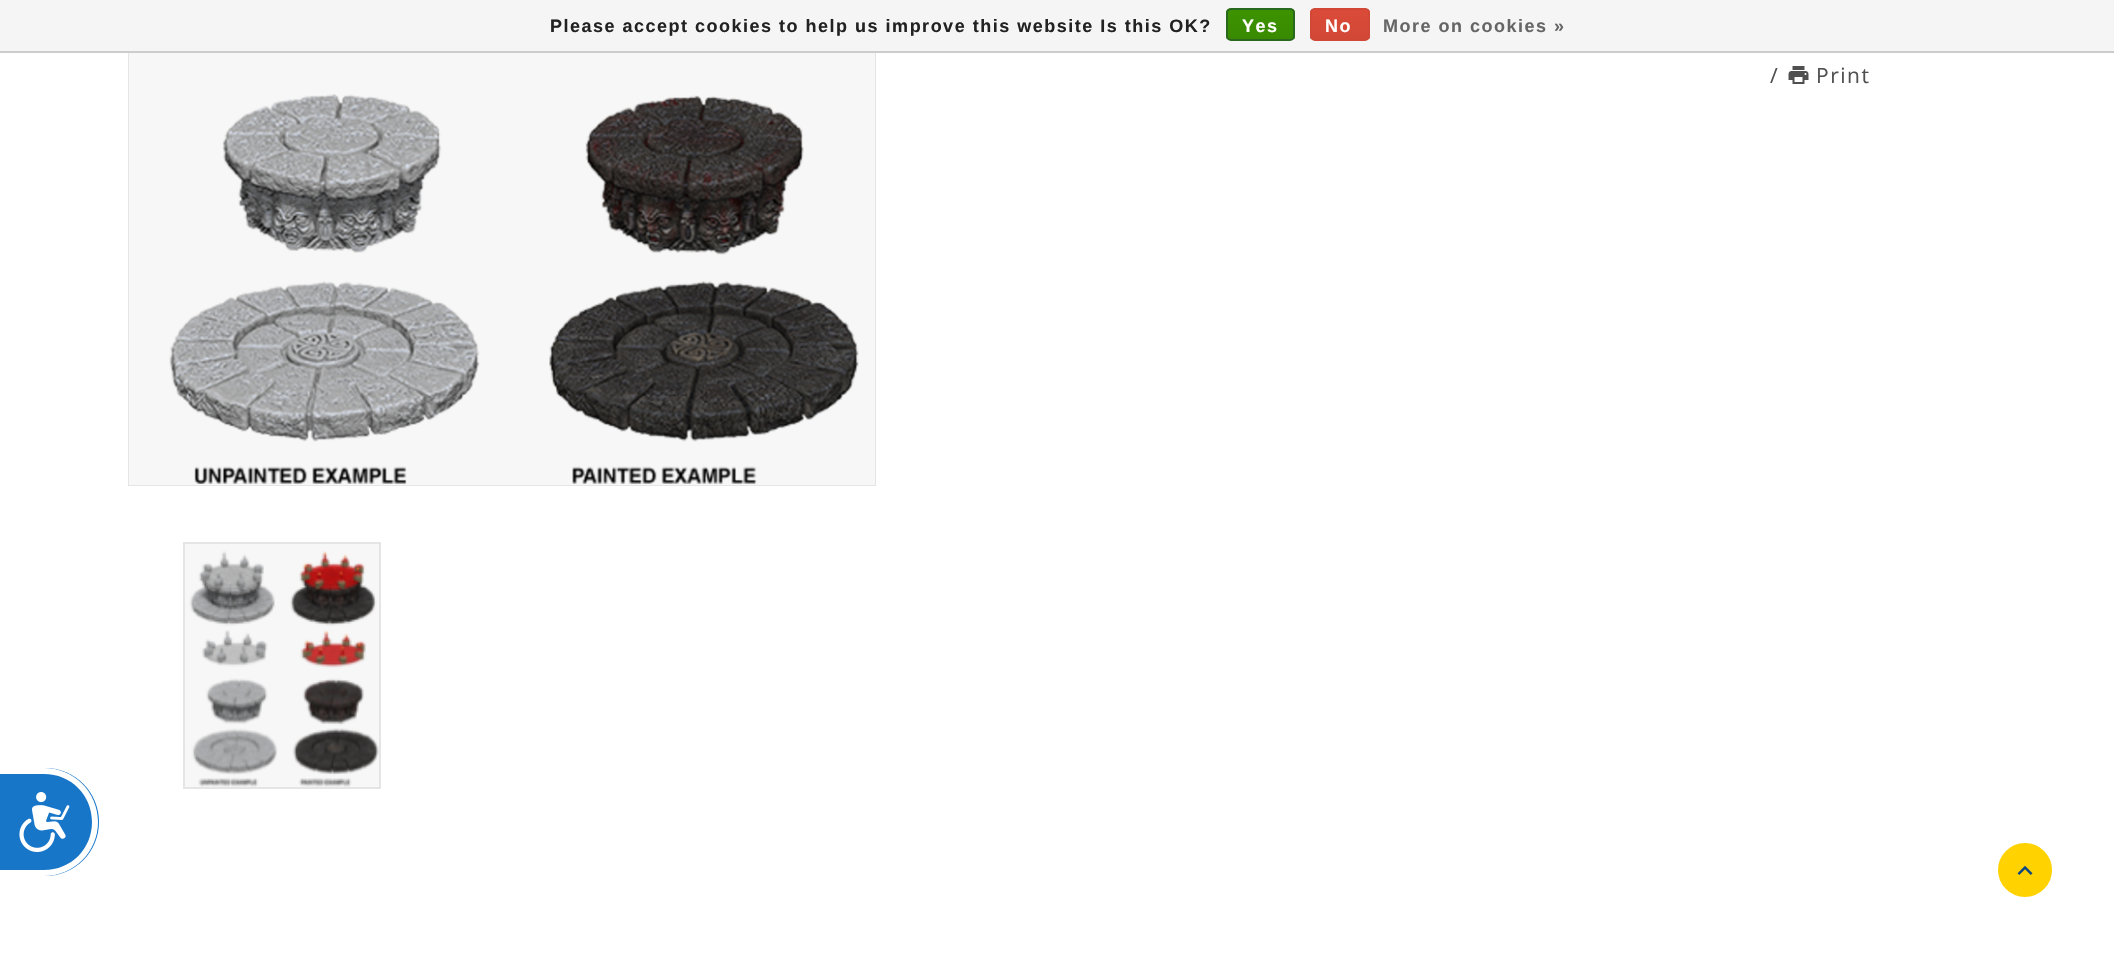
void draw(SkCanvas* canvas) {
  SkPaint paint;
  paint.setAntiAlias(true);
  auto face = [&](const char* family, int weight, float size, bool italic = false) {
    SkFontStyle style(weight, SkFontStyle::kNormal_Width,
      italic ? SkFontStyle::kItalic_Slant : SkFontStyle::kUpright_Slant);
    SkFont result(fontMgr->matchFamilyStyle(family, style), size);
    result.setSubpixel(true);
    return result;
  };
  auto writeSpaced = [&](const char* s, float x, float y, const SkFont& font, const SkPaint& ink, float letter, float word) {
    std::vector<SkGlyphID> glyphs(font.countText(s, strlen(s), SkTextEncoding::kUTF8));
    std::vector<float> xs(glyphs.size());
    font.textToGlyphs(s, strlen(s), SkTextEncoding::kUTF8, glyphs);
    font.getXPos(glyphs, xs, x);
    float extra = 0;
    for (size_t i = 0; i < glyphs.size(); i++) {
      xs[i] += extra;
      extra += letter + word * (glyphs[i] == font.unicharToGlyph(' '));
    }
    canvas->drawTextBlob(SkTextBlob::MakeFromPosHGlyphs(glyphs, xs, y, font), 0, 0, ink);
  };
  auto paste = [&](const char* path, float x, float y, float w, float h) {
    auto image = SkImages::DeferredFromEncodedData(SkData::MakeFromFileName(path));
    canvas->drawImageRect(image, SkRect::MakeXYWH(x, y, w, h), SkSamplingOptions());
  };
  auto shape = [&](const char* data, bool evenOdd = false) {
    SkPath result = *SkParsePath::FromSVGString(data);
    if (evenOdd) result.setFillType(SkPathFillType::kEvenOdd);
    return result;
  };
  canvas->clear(0xffffffff);
  paint.setStroke(true);
  paint.setStrokeWidth(2);
  paint.setColor(0xffe5e5e5);
  canvas->drawRect(SkRect::MakeXYWH(129, -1, 746, 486), paint);
  paint.setStroke(false);
  paint.setColor(0xfff5f5f5);
  canvas->drawRect(SkRect::MakeXYWH(0, 0, 2114, 51), paint);
  paint.setColor(0xffcccccc);
  canvas->drawRect(SkRect::MakeXYWH(0, 51, 2114, 2), paint);
  canvas->save();
  canvas->clipPath(shape("M1231 8H1290C1293 8 1295 10 1295 13V36C1295 39 1293 41 1290 41H1231C1228 41 1226 39 1226 36V13C1226 10 1228 8 1231 8Z"), true);
  {
    const SkColor colors[] = {0xff3c9300, 0xff398a00};
    const float stops[] = {0, 1};
    const SkPoint ends[] = {{1260, 9}, {1260, 39}};
    paint.setShader(SkGradientShader::MakeLinear(ends, colors, stops, 2, SkTileMode::kClamp));
    paint.setAlpha(255);
  }
  canvas->drawRect(SkRect::MakeXYWH(1226, 9, 69, 30), paint);
  canvas->restore();
  paint.setStroke(true);
  paint.setShader(nullptr);
  paint.setColor(0xff29691d);
  canvas->drawRoundRect(SkRect::MakeXYWH(1227, 9, 67, 31), 4, 4, paint);
  canvas->save();
  canvas->clipPath(shape("M1315 8H1365C1368 8 1370 10 1370 13V36C1370 39 1368 41 1365 41H1315C1312 41 1310 39 1310 36V13C1310 10 1312 8 1315 8Z"), true);
  paint.setStroke(false);
  {
    const SkColor colors[] = {0xffdc4a38, 0xffd14836};
    const float stops[] = {0, 1};
    const SkPoint ends[] = {{1340, 9}, {1340, 39}};
    paint.setShader(SkGradientShader::MakeLinear(ends, colors, stops, 2, SkTileMode::kClamp));
    paint.setAlpha(255);
  }
  canvas->drawRect(SkRect::MakeXYWH(1310, 9, 60, 30), paint);
  canvas->restore();
  paint.setStroke(true);
  paint.setShader(nullptr);
  paint.setColor(0xffd14836);
  canvas->drawRoundRect(SkRect::MakeXYWH(1311, 9, 58, 31), 4, 4, paint);
  paint.setStroke(false);
  paint.setColor(0xfff7f7f7);
  canvas->drawRect(SkRect::MakeXYWH(129, 53, 746, 432), paint);
  paste("img/1.png", 169, 94, 690, 390);
  canvas->drawRect(SkRect::MakeXYWH(184, 543, 196, 245), paint);
  paint.setStroke(true);
  paint.setColor(0xffe5e5e5);
  canvas->drawRect(SkRect::MakeXYWH(184, 543, 196, 245), paint);
  paste("img/2.png", 189, 551, 190, 236);
  paste("img/3.png", 1788, 66, 21, 18);
  paint.setStroke(false);
  paint.setColor(0xffffd200);
  canvas->drawCircle(2025, 870, 28.5f, paint);
  paint.setStroke(true);
  paint.setStrokeWidth(3);
  paint.setColor(0xffffffff);
  canvas->drawCircle(2025, 870, 28.5f, paint);
  paste("img/4.png", 2017, 865, 16, 10);
  paint.setStroke(false);
  paint.setColor(0xff1876c9);
  canvas->drawPath(shape("M0 768H45C75 768 99 792 99 822C99 852 75 876 45 876H0Z"), paint);
  paint.setColor(0xffffffff);
  canvas->drawPath(shape("M0 768H44C74 768 98 792 98 822C98 852 74 876 44 876H0ZM0 774H44C71 774 92 795 92 822C92 849 71 870 44 870H0Z", true), paint);
  paste("img/5.png", 19, 792, 51, 60);
  auto f0 = face("Liberation Sans", 700, 18);
  paint.setColor(0xff222222);
  writeSpaced("Please accept cookies to help us improve this website Is this OK?", 550, 32, f0, paint, 1.5f, 0);
  paint.setColor(0xffffffff);
  writeSpaced("Yes", 1242, 32, f0, paint, 1.5f, 0);
  writeSpaced("No", 1325, 32, f0, paint, 1.5f, 0);
  paint.setColor(0xff666666);
  writeSpaced("More on cookies »", 1383, 32, f0, paint, 1.5f, 0);
  auto f1 = face("Open Sans", 400, 21);
  paint.setColor(0xff505050);
  writeSpaced("/", 1770, 83, f1, paint, 1.5f, 0);
  writeSpaced("Print", 1816, 83, f1, paint, 1.5f, 0);
}
